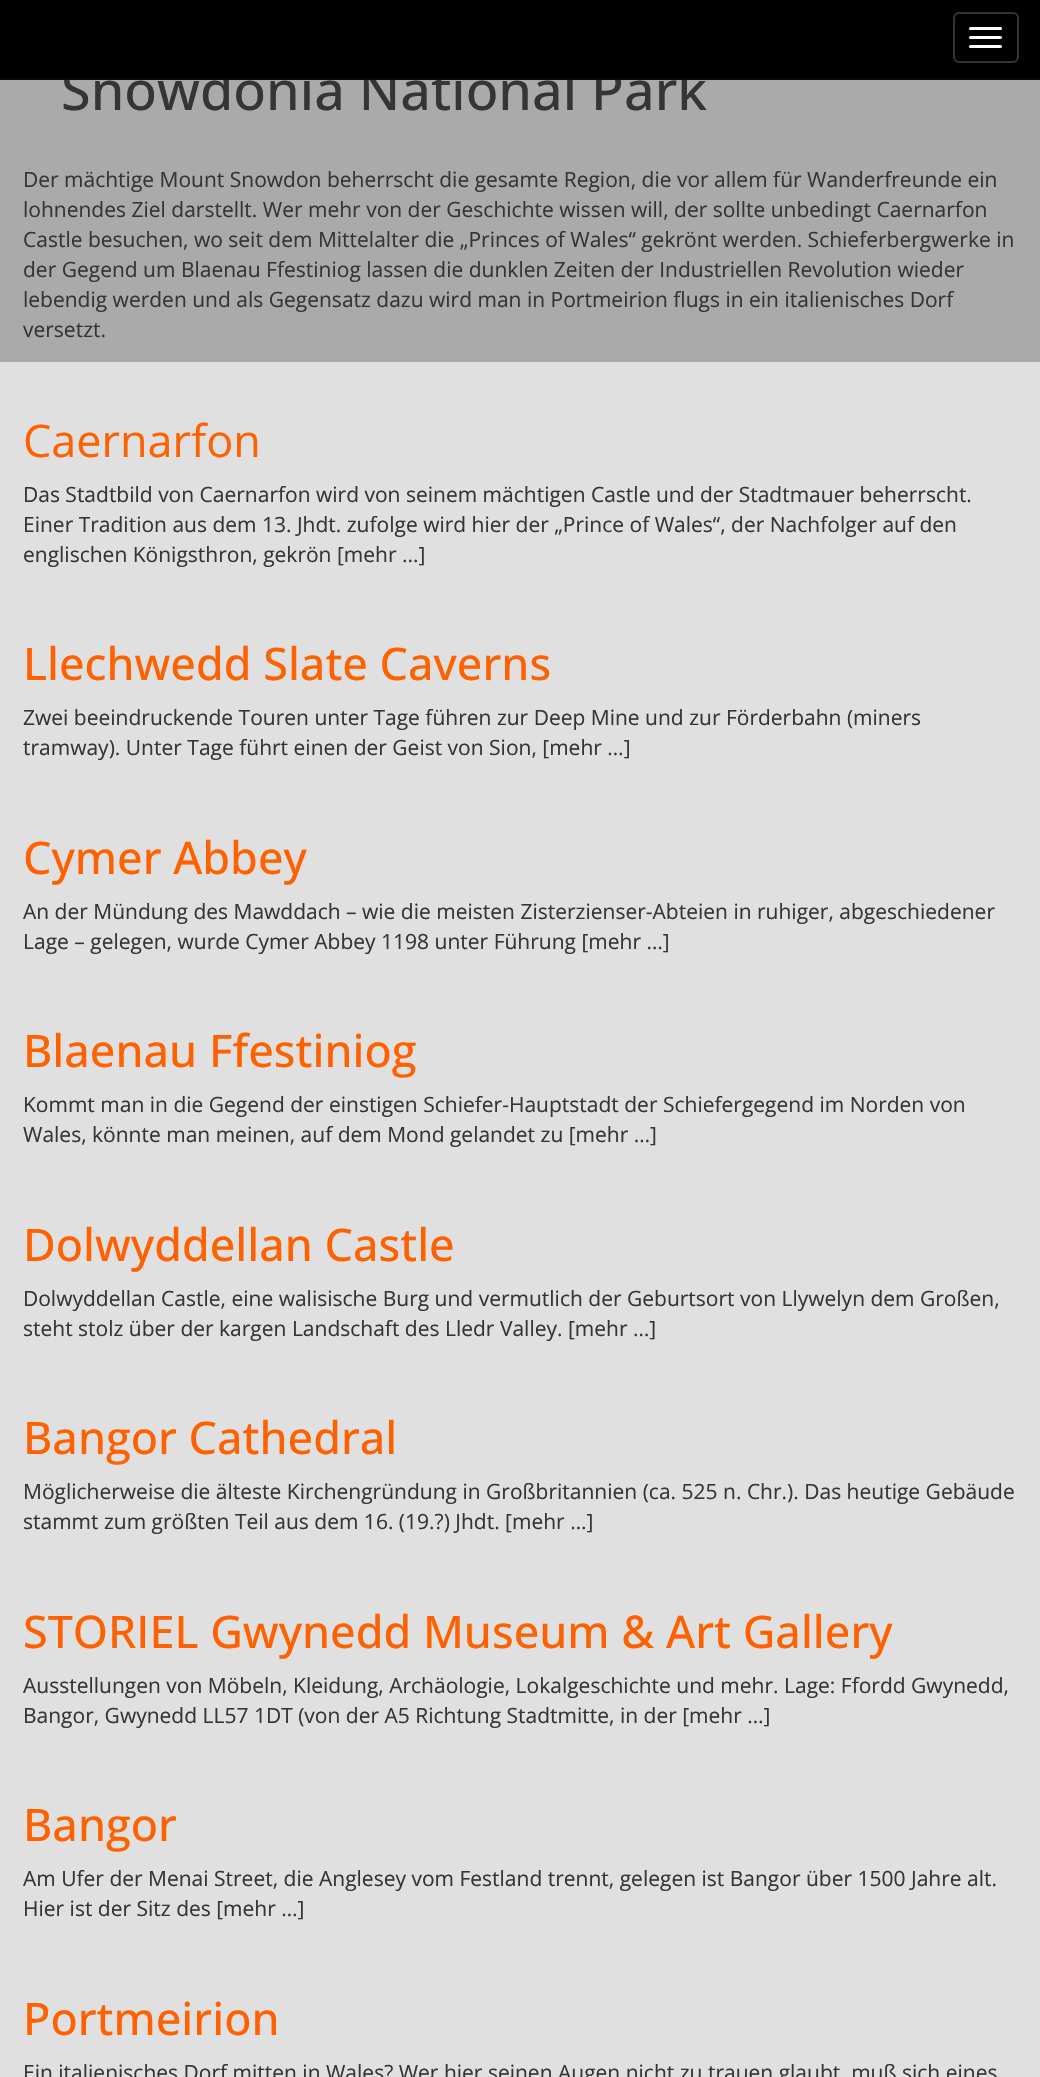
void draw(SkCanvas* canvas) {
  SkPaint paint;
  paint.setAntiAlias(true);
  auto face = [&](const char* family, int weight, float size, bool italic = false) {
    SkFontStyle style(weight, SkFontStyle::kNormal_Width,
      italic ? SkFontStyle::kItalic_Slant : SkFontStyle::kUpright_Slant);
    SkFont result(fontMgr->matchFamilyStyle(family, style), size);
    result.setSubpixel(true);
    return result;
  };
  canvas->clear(0xffe0e0e0);
  paint.setColor(0xffaaaaaa);
  canvas->drawRect(SkRect::MakeXYWH(0, 80, 1040, 282), paint);
  auto f0 = face("Open Sans", 500, 54);
  paint.setColor(0xff353535);
  canvas->drawString("Snowdonia National Park", 61, 110, f0, paint);
  paint.setColor(0xff000000);
  canvas->drawRect(SkRect::MakeXYWH(0, 0, 1040, 78), paint);
  paint.setStroke(true);
  paint.setStrokeWidth(2);
  paint.setColor(0xff333333);
  canvas->drawRoundRect(SkRect::MakeXYWH(954, 13, 64, 49), 5, 5, paint);
  paint.setStroke(false);
  paint.setColor(0xffffffff);
  canvas->drawRoundRect(SkRect::MakeXYWH(969, 45, 33, 3), 1.5f, 1.5f, paint);
  canvas->drawRoundRect(SkRect::MakeXYWH(969, 36, 33, 3), 1.5f, 1.5f, paint);
  canvas->drawRoundRect(SkRect::MakeXYWH(969, 27, 33, 3), 1.5f, 1.5f, paint);
  paint.setColor(0xff080808);
  canvas->drawRect(SkRect::MakeXYWH(0, 78, 1040, 2), paint);
  auto f1 = face("Open Sans", 400, 21);
  paint.setColor(0xff353535);
  {
    const struct { const char* s; float x, y; } items[] = {
      {"Der mächtige Mount Snowdon beherrscht die gesamte Region, die vor allem für Wanderfreunde ein", 23, 187},
      {"lohnendes Ziel darstellt. Wer mehr von der Geschichte wissen will, der sollte unbedingt Caernarfon", 23, 217},
      {"Castle besuchen, wo seit dem Mittelalter die „Princes of Wales“ gekrönt werden. Schieferbergwerke in", 23, 247},
      {"der Gegend um Blaenau Ffestiniog lassen die dunklen Zeiten der Industriellen Revolution wieder", 23, 277},
      {"lebendig werden und als Gegensatz dazu wird man in Portmeirion flugs in ein italienisches Dorf", 23, 307},
      {"versetzt.", 23, 337},
    };
    for (auto [s, x, y] : items) {
      canvas->drawString(s, x, y, f1, paint);
    }
  }
  auto f2 = face("Open Sans", 400, 45);
  paint.setColor(0xffff6000);
  canvas->drawString("Caernarfon", 23, 457, f2, paint);
  paint.setColor(0xff353535);
  {
    const struct { const char* s; float x, y; } items[] = {
      {"Das Stadtbild von Caernarfon wird von seinem mächtigen Castle und der Stadtmauer beherrscht.", 23, 502},
      {"Einer Tradition aus dem 13. Jhdt. zufolge wird hier der „Prince of Wales“, der Nachfolger auf den", 23, 532},
      {"englischen Königsthron, gekrön [mehr ...]", 23, 562},
    };
    for (auto [s, x, y] : items) {
      canvas->drawString(s, x, y, f1, paint);
    }
  }
  auto f3 = face("Open Sans", 500, 45);
  paint.setColor(0xffff6000);
  canvas->drawString("Llechwedd Slate Caverns", 23, 680, f3, paint);
  paint.setColor(0xff353535);
  canvas->drawString("Zwei beeindruckende Touren unter Tage führen zur Deep Mine und zur Förderbahn (miners", 23, 725, f1, paint);
  canvas->drawString("tramway). Unter Tage führt einen der Geist von Sion, [mehr …]", 23, 755, f1, paint);
  paint.setColor(0xffff6000);
  canvas->drawString("Cymer Abbey", 23, 874, f3, paint);
  paint.setColor(0xff353535);
  canvas->drawString("An der Mündung des Mawddach – wie die meisten Zisterzienser-Abteien in ruhiger, abgeschiedener", 23, 919, f1, paint);
  canvas->drawString("Lage – gelegen, wurde Cymer Abbey 1198 unter Führung [mehr …]", 23, 949, f1, paint);
  paint.setColor(0xffff6000);
  canvas->drawString("Blaenau Ffestiniog", 23, 1067, f3, paint);
  paint.setColor(0xff353535);
  canvas->drawString("Kommt man in die Gegend der einstigen Schiefer-Hauptstadt der Schiefergegend im Norden von", 23, 1112, f1, paint);
  canvas->drawString("Wales, könnte man meinen, auf dem Mond gelandet zu [mehr …]", 23, 1142, f1, paint);
  paint.setColor(0xffff6000);
  canvas->drawString("Dolwyddellan Castle", 23, 1261, f3, paint);
  paint.setColor(0xff353535);
  canvas->drawString("Dolwyddellan Castle, eine walisische Burg und vermutlich der Geburtsort von Llywelyn dem Großen,", 23, 1306, f1, paint);
  canvas->drawString("steht stolz über der kargen Landschaft des Lledr Valley. [mehr …]", 23, 1336, f1, paint);
  paint.setColor(0xffff6000);
  canvas->drawString("Bangor Cathedral", 23, 1454, f3, paint);
  paint.setColor(0xff353535);
  canvas->drawString("Möglicherweise die älteste Kirchengründung in Großbritannien (ca. 525 n. Chr.). Das heutige Gebäude", 23, 1499, f1, paint);
  canvas->drawString("stammt zum größten Teil aus dem 16. (19.?) Jhdt. [mehr …]", 23, 1529, f1, paint);
  paint.setColor(0xffff6000);
  canvas->drawString("STORIEL Gwynedd Museum & Art Gallery", 23, 1648, f3, paint);
  paint.setColor(0xff353535);
  canvas->drawString("Ausstellungen von Möbeln, Kleidung, Archäologie, Lokalgeschichte und mehr. Lage: Ffordd Gwynedd,", 23, 1693, f1, paint);
  canvas->drawString("Bangor, Gwynedd LL57 1DT (von der A5 Richtung Stadtmitte, in der [mehr …]", 23, 1723, f1, paint);
  paint.setColor(0xffff6000);
  canvas->drawString("Bangor", 23, 1841, f3, paint);
  paint.setColor(0xff353535);
  canvas->drawString("Am Ufer der Menai Street, die Anglesey vom Festland trennt, gelegen ist Bangor über 1500 Jahre alt.", 23, 1886, f1, paint);
  canvas->drawString("Hier ist der Sitz des [mehr …]", 23, 1916, f1, paint);
  paint.setColor(0xffff6000);
  canvas->drawString("Portmeirion", 23, 2035, f3, paint);
  paint.setColor(0xff353535);
  canvas->drawString("Ein italienisches Dorf mitten in Wales? Wer hier seinen Augen nicht zu trauen glaubt, muß sich eines", 23, 2080, f1, paint);
}
